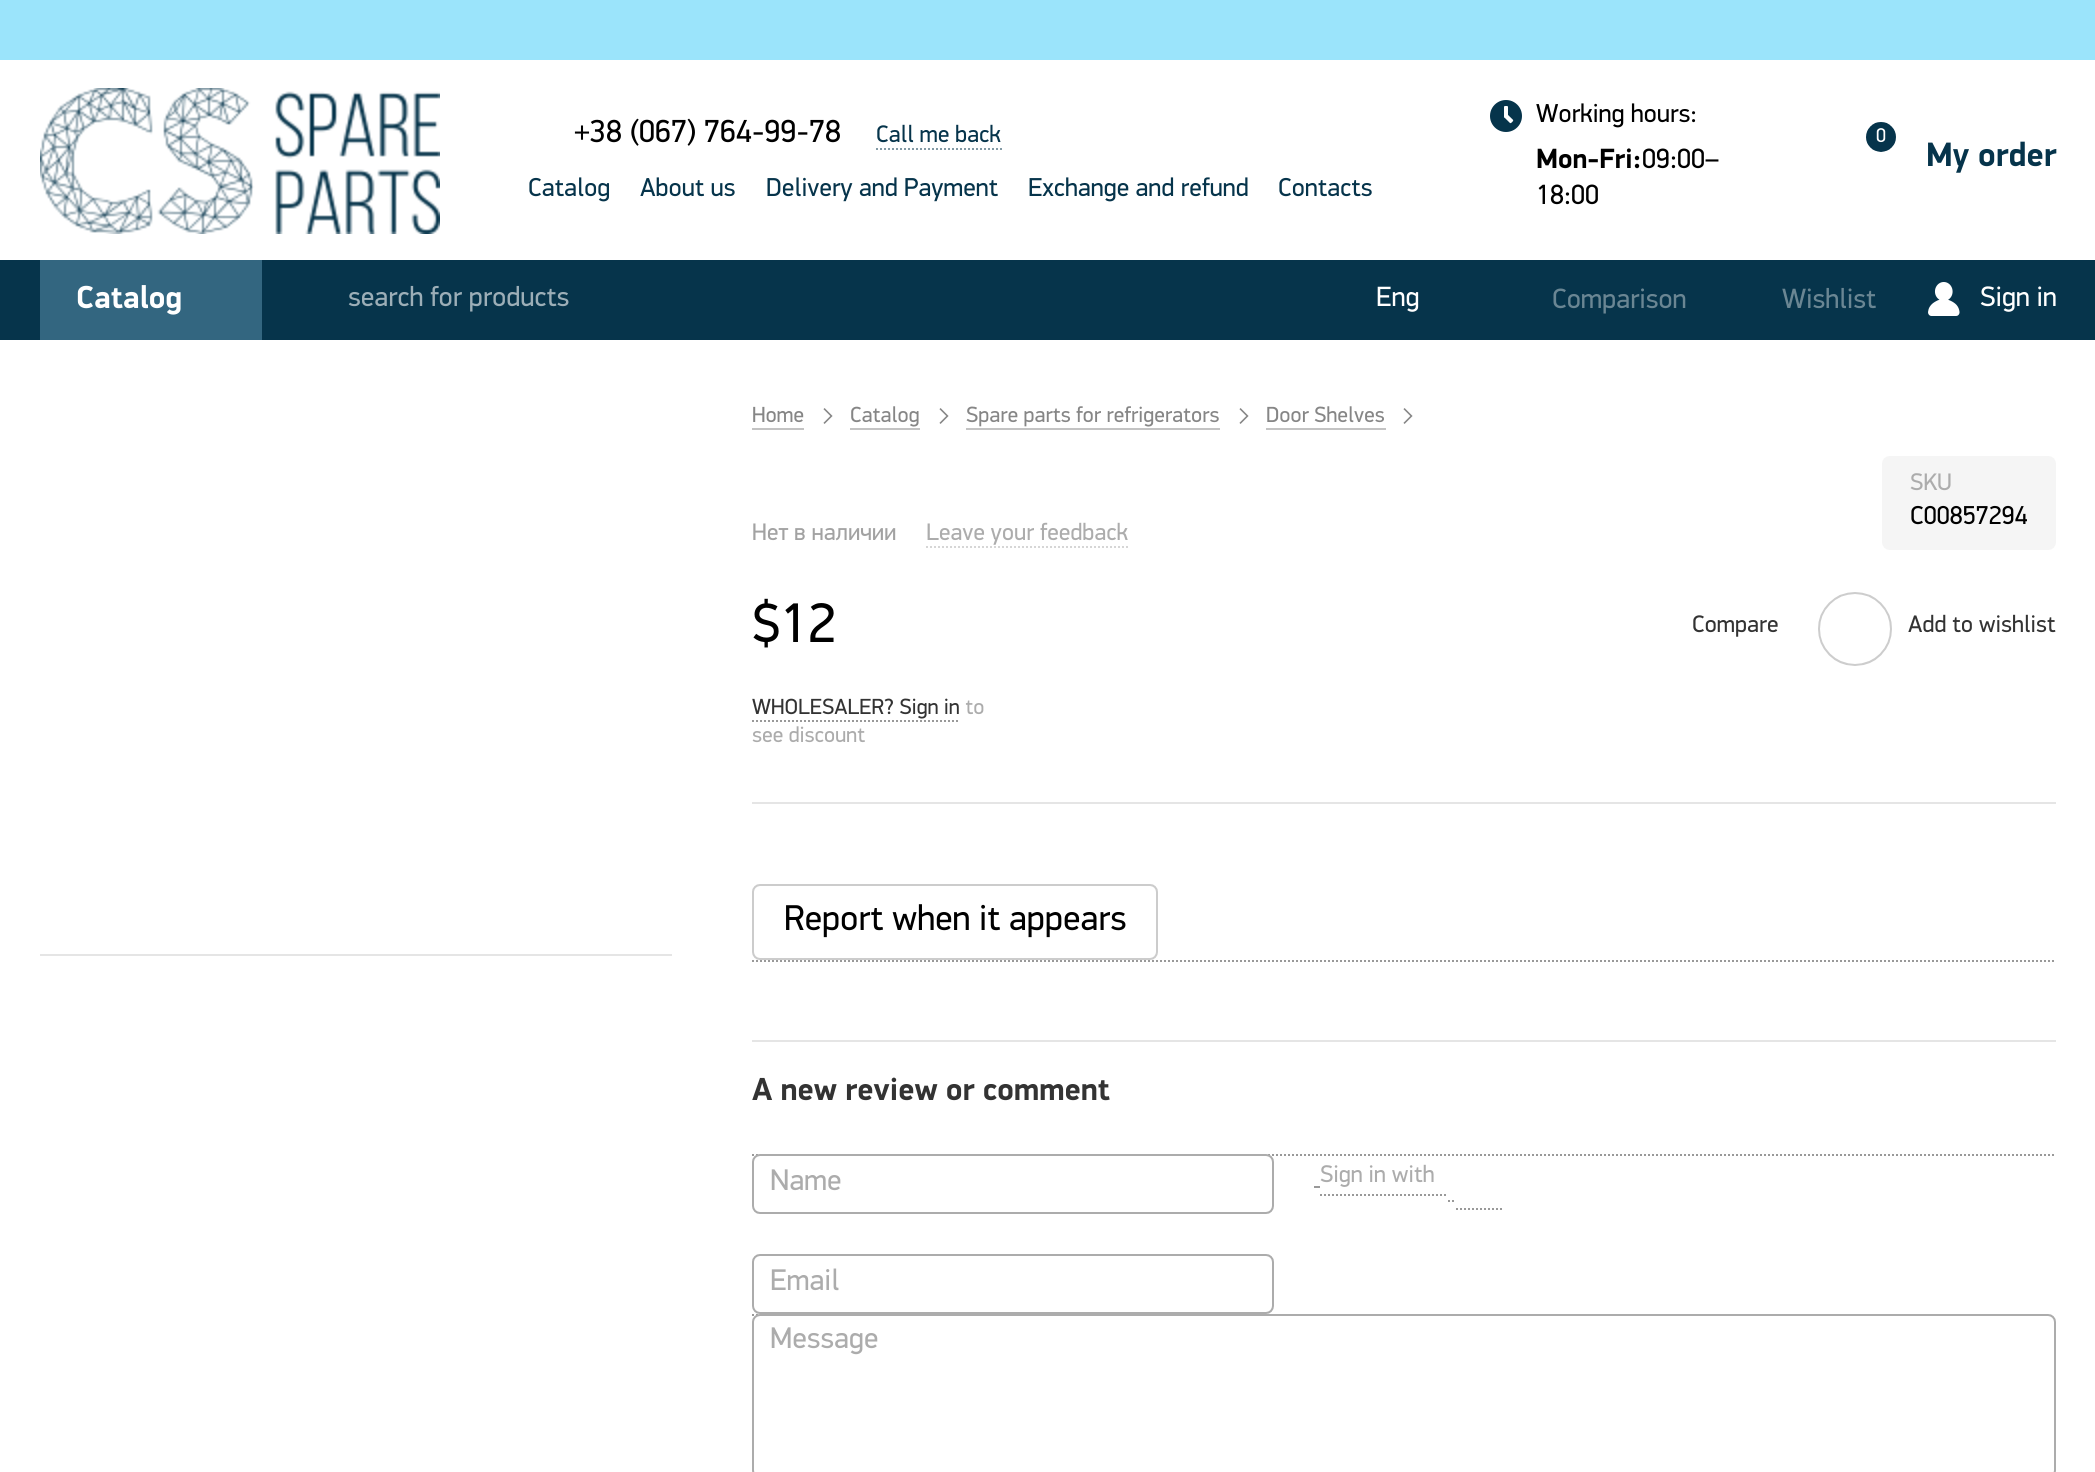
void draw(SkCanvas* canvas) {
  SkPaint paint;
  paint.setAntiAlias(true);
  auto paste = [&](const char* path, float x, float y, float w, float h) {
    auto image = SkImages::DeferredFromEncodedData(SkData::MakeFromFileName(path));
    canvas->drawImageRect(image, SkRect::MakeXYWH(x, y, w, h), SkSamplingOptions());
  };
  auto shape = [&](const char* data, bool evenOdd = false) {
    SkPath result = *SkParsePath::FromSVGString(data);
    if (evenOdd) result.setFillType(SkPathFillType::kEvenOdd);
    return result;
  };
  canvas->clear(0xffffffff);
  paint.setColor(0xff9be4fb);
  canvas->drawRect(SkRect::MakeXYWH(0, 0, 2095, 60), paint);
  paste("img/1.png", 40, 88, 400, 146);
  paste("img/2.png", 574, 118, 266, 28);
  paste("img/3.png", 877, 124, 124, 19);
  paint.setStroke(true);
  paint.setStrokeWidth(2);
  paint.setColor(0xff839aa5);
  paint.setPathEffect(SkDashPathEffect::Make({{2, 2}}, 0));
  canvas->drawPath(shape("M876 149H1002"), paint);
  paint.setPathEffect(nullptr);
  paste("img/4.png", 529, 177, 80, 25);
  paste("img/5.png", 640, 177, 95, 20);
  paste("img/6.png", 767, 177, 130, 25);
  paste("img/7.png", 905, 178, 93, 24);
  paste("img/8.png", 1029, 177, 219, 25);
  paste("img/9.png", 1279, 177, 93, 20);
  paste("img/10.png", 1490, 100, 32, 32);
  paste("img/11.png", 1536, 103, 160, 25);
  paste("img/12.png", 1537, 148, 103, 21);
  paste("img/13.png", 1643, 148, 76, 21);
  paste("img/14.png", 1538, 184, 60, 21);
  paint.setStroke(false);
  paint.setColor(0xff06344b);
  canvas->drawCircle(1881, 137, 15, paint);
  paste("img/15.png", 1876, 128, 10, 15);
  paste("img/16.png", 1928, 141, 129, 32);
  canvas->drawRect(SkRect::MakeXYWH(0, 260, 2095, 80), paint);
  paint.setColor(0xff336680);
  canvas->drawRect(SkRect::MakeXYWH(40, 260, 222, 80), paint);
  paste("img/17.png", 77, 285, 104, 30);
  paste("img/18.png", 348, 285, 221, 27);
  paste("img/19.png", 1377, 286, 42, 26);
  paste("img/20.png", 1553, 288, 133, 26);
  paste("img/21.png", 1782, 287, 94, 22);
  paste("img/22.png", 1928, 282, 32, 34);
  paste("img/23.png", 1980, 286, 76, 26);
  paint.setColor(0xffe5e5e5);
  canvas->drawRect(SkRect::MakeXYWH(40, 954, 632, 2), paint);
  paste("img/24.png", 753, 406, 51, 17);
  paste("img/25.png", 823, 408, 10, 16);
  paint.setColor(0xffc3c3c3);
  canvas->drawRect(SkRect::MakeXYWH(752, 428, 52, 2), paint);
  paste("img/26.png", 851, 406, 68, 21);
  paste("img/25.png", 939, 408, 10, 16);
  canvas->drawRect(SkRect::MakeXYWH(850, 428, 70, 2), paint);
  paste("img/27.png", 966, 406, 253, 21);
  paste("img/25.png", 1239, 408, 10, 16);
  canvas->drawRect(SkRect::MakeXYWH(966, 428, 254, 2), paint);
  paste("img/28.png", 1267, 406, 117, 17);
  paste("img/25.png", 1403, 408, 10, 16);
  canvas->drawRect(SkRect::MakeXYWH(1266, 428, 120, 2), paint);
  paste("img/29.png", 753, 523, 143, 18);
  paste("img/30.png", 927, 522, 201, 23);
  paint.setStroke(true);
  paint.setColor(0xffd6d6d6);
  paint.setPathEffect(SkDashPathEffect::Make({{2, 2}}, 0));
  canvas->drawPath(shape("M926 547H1128"), paint);
  paint.setPathEffect(nullptr);
  paint.setStroke(false);
  paint.setColor(0xfff5f5f5);
  canvas->drawRoundRect(SkRect::MakeXYWH(1882, 456, 174, 94), 8, 8, paint);
  paste("img/31.png", 1910, 473, 41, 18);
  paste("img/32.png", 1911, 505, 116, 20);
  paste("img/33.png", 753, 598, 26, 50);
  paste("img/34.png", 785, 603, 49, 39);
  paste("img/35.png", 1693, 615, 85, 22);
  paint.setStroke(true);
  paint.setColor(0xffcdcdcd);
  canvas->drawCircle(1855, 629, 36, paint);
  paste("img/36.png", 1908, 614, 148, 19);
  paste("img/37.png", 752, 698, 207, 21);
  paste("img/38.png", 965, 700, 19, 15);
  paint.setColor(0xff999999);
  paint.setPathEffect(SkDashPathEffect::Make({{2, 2}}, 0));
  canvas->drawPath(shape("M752 721H960"), paint);
  paint.setPathEffect(nullptr);
  paste("img/39.png", 752, 726, 113, 17);
  paint.setStroke(false);
  paint.setColor(0xffe5e5e5);
  canvas->drawRect(SkRect::MakeXYWH(752, 802, 1304, 2), paint);
  paint.setStroke(true);
  paint.setColor(0xffcccccc);
  canvas->drawRoundRect(SkRect::MakeXYWH(753, 885, 404, 74), 7, 7, paint);
  paste("img/40.png", 786, 904, 340, 34);
  paint.setColor(0xff999999);
  paint.setPathEffect(SkDashPathEffect::Make({{2, 2}}, 0));
  canvas->drawPath(shape("M752 961H2056"), paint);
  paint.setPathEffect(nullptr);
  paint.setStroke(false);
  paint.setColor(0xffe5e5e5);
  canvas->drawRect(SkRect::MakeXYWH(752, 1040, 1304, 2), paint);
  paste("img/41.png", 752, 1077, 358, 24);
  paint.setStroke(true);
  paint.setColor(0xff999999);
  paint.setPathEffect(SkDashPathEffect::Make({{2, 2}}, 0));
  canvas->drawPath(shape("M752 1155H2056"), paint);
  paint.setPathEffect(nullptr);
  paint.setPathEffect(SkDashPathEffect::Make({{2, 2}}, 0));
  canvas->drawPath(shape("M752 1315H1274"), paint);
  paint.setPathEffect(nullptr);
  paint.setStroke(false);
  canvas->drawRect(SkRect::MakeXYWH(1314, 1186, 6, 2), paint);
  paint.setColor(0xffffffff);
  canvas->drawRoundRect(SkRect::MakeXYWH(753, 1155, 520, 58), 7, 7, paint);
  paint.setStroke(true);
  paint.setColor(0xffacacac);
  canvas->drawRoundRect(SkRect::MakeXYWH(753, 1155, 520, 58), 7, 7, paint);
  paste("img/42.png", 771, 1169, 70, 22);
  canvas->drawRoundRect(SkRect::MakeXYWH(753, 1255, 520, 58), 7, 7, paint);
  paste("img/43.png", 771, 1268, 68, 23);
  paint.setColor(0xff999999);
  paint.setPathEffect(SkDashPathEffect::Make({{2, 2}}, 0));
  canvas->drawPath(shape("M1320 1195H1448"), paint);
  paint.setPathEffect(nullptr);
  canvas->drawPath(shape("M1448 1201H1450M1452 1201H1454"), paint);
  paste("img/44.png", 1320, 1164, 114, 23);
  paint.setPathEffect(SkDashPathEffect::Make({{2, 2}}, 0));
  canvas->drawPath(shape("M1456 1209H1504"), paint);
  paint.setPathEffect(nullptr);
  paint.setStroke(false);
  paint.setColor(0xffffffff);
  canvas->drawRoundRect(SkRect::MakeXYWH(753, 1315, 1302, 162), 7, 7, paint);
  paint.setStroke(true);
  paint.setColor(0xffacacac);
  canvas->drawRoundRect(SkRect::MakeXYWH(753, 1315, 1302, 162), 7, 7, paint);
  paste("img/45.png", 771, 1327, 107, 28);
}
